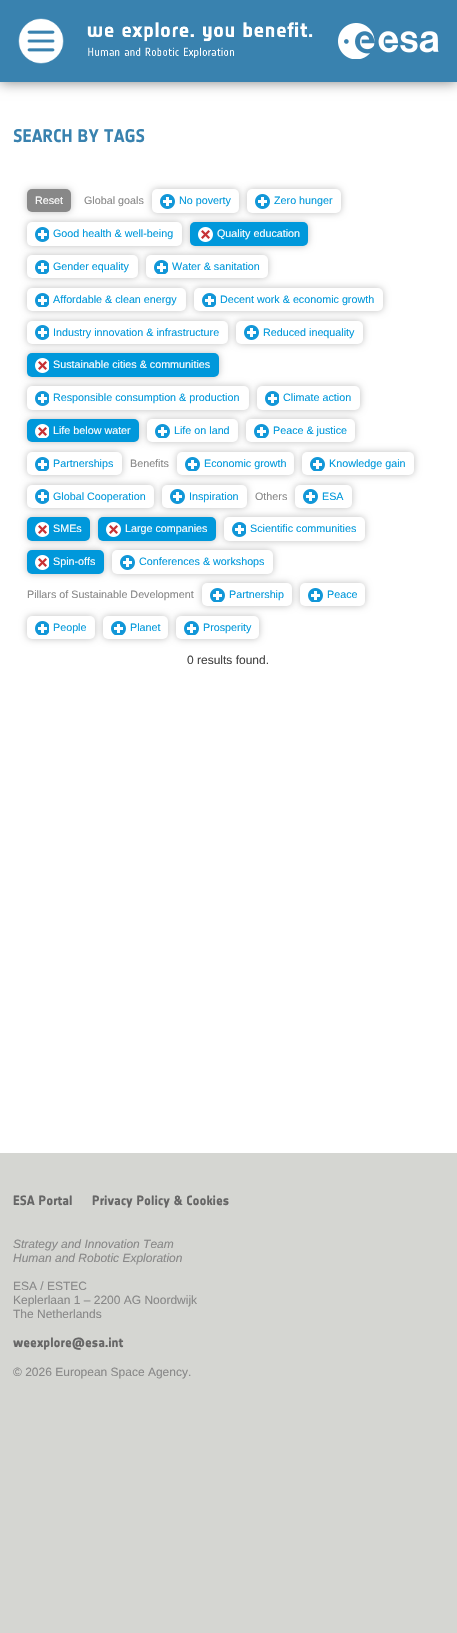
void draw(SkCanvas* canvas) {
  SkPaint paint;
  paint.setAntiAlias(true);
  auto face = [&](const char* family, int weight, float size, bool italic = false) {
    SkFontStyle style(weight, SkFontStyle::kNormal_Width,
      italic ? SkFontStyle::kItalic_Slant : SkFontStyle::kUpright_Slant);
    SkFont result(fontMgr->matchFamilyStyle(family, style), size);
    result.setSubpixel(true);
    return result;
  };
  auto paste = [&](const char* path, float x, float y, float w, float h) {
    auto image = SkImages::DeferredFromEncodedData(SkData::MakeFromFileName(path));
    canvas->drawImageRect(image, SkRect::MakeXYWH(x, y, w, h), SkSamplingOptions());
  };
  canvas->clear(0xffd5d6d2);
  paint.setColor(0xffffffff);
  canvas->drawRect(SkRect::MakeXYWH(0, 82, 457, 1071), paint);
  paint.setColor(0x80000000);
  paint.setMaskFilter(SkMaskFilter::MakeBlur(kNormal_SkBlurStyle, 6.5f));
  canvas->drawRect(SkRect::MakeXYWH(0, 0, 457, 82), paint);
  paint.setMaskFilter(nullptr);
  paint.setColor(0xff3982af);
  canvas->drawRect(SkRect::MakeXYWH(0, 0, 457, 82), paint);
  paste("img/1.png", 18, 18, 46, 46);
  paste("img/2.png", 87, 22, 226, 36);
  paste("img/3.png", 338, 23, 101, 36);
  paint.setColor(0x40000000);
  paint.setMaskFilter(SkMaskFilter::MakeBlur(kNormal_SkBlurStyle, 3.5f));
  canvas->drawRoundRect(SkRect::MakeXYWH(27, 189, 44, 23), 5, 5, paint);
  paint.setMaskFilter(nullptr);
  paint.setColor(0xff888888);
  canvas->drawRoundRect(SkRect::MakeXYWH(27, 189, 44, 23), 5, 5, paint);
  paint.setColor(0x40000000);
  paint.setMaskFilter(SkMaskFilter::MakeBlur(kNormal_SkBlurStyle, 3.5f));
  canvas->drawRoundRect(SkRect::MakeXYWH(152, 189, 87, 24), 5, 5, paint);
  paint.setMaskFilter(nullptr);
  paint.setColor(0xffffffff);
  canvas->drawRoundRect(SkRect::MakeXYWH(152, 189, 87, 24), 5, 5, paint);
  paste("img/4.png", 160, 194, 15, 15);
  paint.setColor(0x40000000);
  paint.setMaskFilter(SkMaskFilter::MakeBlur(kNormal_SkBlurStyle, 3.5f));
  canvas->drawRoundRect(SkRect::MakeXYWH(247, 189, 94, 24), 5, 5, paint);
  paint.setMaskFilter(nullptr);
  paint.setColor(0xffffffff);
  canvas->drawRoundRect(SkRect::MakeXYWH(247, 189, 94, 24), 5, 5, paint);
  paste("img/4.png", 255, 194, 15, 15);
  paint.setColor(0x40000000);
  paint.setMaskFilter(SkMaskFilter::MakeBlur(kNormal_SkBlurStyle, 3.5f));
  canvas->drawRoundRect(SkRect::MakeXYWH(27, 222, 155, 24), 5, 5, paint);
  paint.setMaskFilter(nullptr);
  paint.setColor(0xffffffff);
  canvas->drawRoundRect(SkRect::MakeXYWH(27, 222, 155, 24), 5, 5, paint);
  paste("img/5.png", 35, 227, 14, 15);
  paint.setColor(0x40000000);
  paint.setMaskFilter(SkMaskFilter::MakeBlur(kNormal_SkBlurStyle, 3.5f));
  canvas->drawRoundRect(SkRect::MakeXYWH(190, 222, 118, 24), 5, 5, paint);
  paint.setMaskFilter(nullptr);
  paint.setColor(0xff0098db);
  canvas->drawRoundRect(SkRect::MakeXYWH(190, 222, 118, 24), 5, 5, paint);
  paste("img/6.png", 198, 227, 15, 15);
  paint.setColor(0x40000000);
  paint.setMaskFilter(SkMaskFilter::MakeBlur(kNormal_SkBlurStyle, 3.5f));
  canvas->drawRoundRect(SkRect::MakeXYWH(27, 255, 111, 23), 5, 5, paint);
  paint.setMaskFilter(nullptr);
  paint.setColor(0xffffffff);
  canvas->drawRoundRect(SkRect::MakeXYWH(27, 255, 111, 23), 5, 5, paint);
  paste("img/7.png", 35, 260, 14, 14);
  paint.setColor(0x40000000);
  paint.setMaskFilter(SkMaskFilter::MakeBlur(kNormal_SkBlurStyle, 3.5f));
  canvas->drawRoundRect(SkRect::MakeXYWH(146, 255, 122, 23), 5, 5, paint);
  paint.setMaskFilter(nullptr);
  paint.setColor(0xffffffff);
  canvas->drawRoundRect(SkRect::MakeXYWH(146, 255, 122, 23), 5, 5, paint);
  paste("img/7.png", 154, 260, 14, 14);
  paint.setColor(0x40000000);
  paint.setMaskFilter(SkMaskFilter::MakeBlur(kNormal_SkBlurStyle, 3.5f));
  canvas->drawRoundRect(SkRect::MakeXYWH(27, 288, 159, 23), 5, 5, paint);
  paint.setMaskFilter(nullptr);
  paint.setColor(0xffffffff);
  canvas->drawRoundRect(SkRect::MakeXYWH(27, 288, 159, 23), 5, 5, paint);
  paste("img/7.png", 35, 293, 14, 14);
  paint.setColor(0x40000000);
  paint.setMaskFilter(SkMaskFilter::MakeBlur(kNormal_SkBlurStyle, 3.5f));
  canvas->drawRoundRect(SkRect::MakeXYWH(194, 288, 189, 23), 5, 5, paint);
  paint.setMaskFilter(nullptr);
  paint.setColor(0xffffffff);
  canvas->drawRoundRect(SkRect::MakeXYWH(194, 288, 189, 23), 5, 5, paint);
  paste("img/7.png", 202, 293, 14, 14);
  paint.setColor(0x40000000);
  paint.setMaskFilter(SkMaskFilter::MakeBlur(kNormal_SkBlurStyle, 3.5f));
  canvas->drawRoundRect(SkRect::MakeXYWH(27, 321, 201, 23), 5, 5, paint);
  paint.setMaskFilter(nullptr);
  paint.setColor(0xffffffff);
  canvas->drawRoundRect(SkRect::MakeXYWH(27, 321, 201, 23), 5, 5, paint);
  paste("img/5.png", 35, 325, 14, 15);
  paint.setColor(0x40000000);
  paint.setMaskFilter(SkMaskFilter::MakeBlur(kNormal_SkBlurStyle, 3.5f));
  canvas->drawRoundRect(SkRect::MakeXYWH(236, 321, 127, 23), 5, 5, paint);
  paint.setMaskFilter(nullptr);
  paint.setColor(0xffffffff);
  canvas->drawRoundRect(SkRect::MakeXYWH(236, 321, 127, 23), 5, 5, paint);
  paste("img/4.png", 244, 325, 15, 15);
  paint.setColor(0x40000000);
  paint.setMaskFilter(SkMaskFilter::MakeBlur(kNormal_SkBlurStyle, 3.5f));
  canvas->drawRoundRect(SkRect::MakeXYWH(27, 353, 192, 24), 5, 5, paint);
  paint.setMaskFilter(nullptr);
  paint.setColor(0xff0098db);
  canvas->drawRoundRect(SkRect::MakeXYWH(27, 353, 192, 24), 5, 5, paint);
  paste("img/8.png", 35, 358, 14, 15);
  paint.setColor(0x40000000);
  paint.setMaskFilter(SkMaskFilter::MakeBlur(kNormal_SkBlurStyle, 3.5f));
  canvas->drawRoundRect(SkRect::MakeXYWH(27, 386, 222, 24), 5, 5, paint);
  paint.setMaskFilter(nullptr);
  paint.setColor(0xffffffff);
  canvas->drawRoundRect(SkRect::MakeXYWH(27, 386, 222, 24), 5, 5, paint);
  paste("img/5.png", 35, 391, 14, 15);
  paint.setColor(0x40000000);
  paint.setMaskFilter(SkMaskFilter::MakeBlur(kNormal_SkBlurStyle, 3.5f));
  canvas->drawRoundRect(SkRect::MakeXYWH(257, 386, 103, 24), 5, 5, paint);
  paint.setMaskFilter(nullptr);
  paint.setColor(0xffffffff);
  canvas->drawRoundRect(SkRect::MakeXYWH(257, 386, 103, 24), 5, 5, paint);
  paste("img/5.png", 265, 391, 14, 15);
  paint.setColor(0x40000000);
  paint.setMaskFilter(SkMaskFilter::MakeBlur(kNormal_SkBlurStyle, 3.5f));
  canvas->drawRoundRect(SkRect::MakeXYWH(27, 419, 112, 23), 5, 5, paint);
  paint.setMaskFilter(nullptr);
  paint.setColor(0xff0098db);
  canvas->drawRoundRect(SkRect::MakeXYWH(27, 419, 112, 23), 5, 5, paint);
  paste("img/9.png", 35, 424, 14, 14);
  paint.setColor(0x40000000);
  paint.setMaskFilter(SkMaskFilter::MakeBlur(kNormal_SkBlurStyle, 3.5f));
  canvas->drawRoundRect(SkRect::MakeXYWH(147, 419, 91, 23), 5, 5, paint);
  paint.setMaskFilter(nullptr);
  paint.setColor(0xffffffff);
  canvas->drawRoundRect(SkRect::MakeXYWH(147, 419, 91, 23), 5, 5, paint);
  paste("img/10.png", 155, 424, 15, 14);
  paint.setColor(0x40000000);
  paint.setMaskFilter(SkMaskFilter::MakeBlur(kNormal_SkBlurStyle, 3.5f));
  canvas->drawRoundRect(SkRect::MakeXYWH(246, 419, 109, 23), 5, 5, paint);
  paint.setMaskFilter(nullptr);
  paint.setColor(0xffffffff);
  canvas->drawRoundRect(SkRect::MakeXYWH(246, 419, 109, 23), 5, 5, paint);
  paste("img/10.png", 254, 424, 15, 14);
  paint.setColor(0x40000000);
  paint.setMaskFilter(SkMaskFilter::MakeBlur(kNormal_SkBlurStyle, 3.5f));
  canvas->drawRoundRect(SkRect::MakeXYWH(27, 452, 95, 23), 5, 5, paint);
  paint.setMaskFilter(nullptr);
  paint.setColor(0xffffffff);
  canvas->drawRoundRect(SkRect::MakeXYWH(27, 452, 95, 23), 5, 5, paint);
  paste("img/7.png", 35, 457, 14, 14);
  paint.setColor(0x40000000);
  paint.setMaskFilter(SkMaskFilter::MakeBlur(kNormal_SkBlurStyle, 3.5f));
  canvas->drawRoundRect(SkRect::MakeXYWH(177, 452, 117, 23), 5, 5, paint);
  paint.setMaskFilter(nullptr);
  paint.setColor(0xffffffff);
  canvas->drawRoundRect(SkRect::MakeXYWH(177, 452, 117, 23), 5, 5, paint);
  paste("img/10.png", 185, 457, 15, 14);
  paint.setColor(0x40000000);
  paint.setMaskFilter(SkMaskFilter::MakeBlur(kNormal_SkBlurStyle, 3.5f));
  canvas->drawRoundRect(SkRect::MakeXYWH(302, 452, 112, 23), 5, 5, paint);
  paint.setMaskFilter(nullptr);
  paint.setColor(0xffffffff);
  canvas->drawRoundRect(SkRect::MakeXYWH(302, 452, 112, 23), 5, 5, paint);
  paste("img/10.png", 310, 457, 15, 14);
  paint.setColor(0x40000000);
  paint.setMaskFilter(SkMaskFilter::MakeBlur(kNormal_SkBlurStyle, 3.5f));
  canvas->drawRoundRect(SkRect::MakeXYWH(27, 485, 127, 23), 5, 5, paint);
  paint.setMaskFilter(nullptr);
  paint.setColor(0xffffffff);
  canvas->drawRoundRect(SkRect::MakeXYWH(27, 485, 127, 23), 5, 5, paint);
  paste("img/5.png", 35, 489, 14, 15);
  paint.setColor(0x40000000);
  paint.setMaskFilter(SkMaskFilter::MakeBlur(kNormal_SkBlurStyle, 3.5f));
  canvas->drawRoundRect(SkRect::MakeXYWH(162, 485, 85, 23), 5, 5, paint);
  paint.setMaskFilter(nullptr);
  paint.setColor(0xffffffff);
  canvas->drawRoundRect(SkRect::MakeXYWH(162, 485, 85, 23), 5, 5, paint);
  paste("img/4.png", 170, 489, 15, 15);
  paint.setColor(0x40000000);
  paint.setMaskFilter(SkMaskFilter::MakeBlur(kNormal_SkBlurStyle, 3.5f));
  canvas->drawRoundRect(SkRect::MakeXYWH(295, 485, 57, 23), 5, 5, paint);
  paint.setMaskFilter(nullptr);
  paint.setColor(0xffffffff);
  canvas->drawRoundRect(SkRect::MakeXYWH(295, 485, 57, 23), 5, 5, paint);
  paste("img/4.png", 303, 489, 15, 15);
  paint.setColor(0x40000000);
  paint.setMaskFilter(SkMaskFilter::MakeBlur(kNormal_SkBlurStyle, 3.5f));
  canvas->drawRoundRect(SkRect::MakeXYWH(27, 517, 63, 24), 5, 5, paint);
  paint.setMaskFilter(nullptr);
  paint.setColor(0xff0098db);
  canvas->drawRoundRect(SkRect::MakeXYWH(27, 517, 63, 24), 5, 5, paint);
  paste("img/8.png", 35, 522, 14, 15);
  paint.setColor(0x40000000);
  paint.setMaskFilter(SkMaskFilter::MakeBlur(kNormal_SkBlurStyle, 3.5f));
  canvas->drawRoundRect(SkRect::MakeXYWH(98, 517, 118, 24), 5, 5, paint);
  paint.setMaskFilter(nullptr);
  paint.setColor(0xff0098db);
  canvas->drawRoundRect(SkRect::MakeXYWH(98, 517, 118, 24), 5, 5, paint);
  paste("img/6.png", 106, 522, 15, 15);
  paint.setColor(0x40000000);
  paint.setMaskFilter(SkMaskFilter::MakeBlur(kNormal_SkBlurStyle, 3.5f));
  canvas->drawRoundRect(SkRect::MakeXYWH(224, 517, 141, 24), 5, 5, paint);
  paint.setMaskFilter(nullptr);
  paint.setColor(0xffffffff);
  canvas->drawRoundRect(SkRect::MakeXYWH(224, 517, 141, 24), 5, 5, paint);
  paste("img/5.png", 232, 522, 14, 15);
  paint.setColor(0x40000000);
  paint.setMaskFilter(SkMaskFilter::MakeBlur(kNormal_SkBlurStyle, 3.5f));
  canvas->drawRoundRect(SkRect::MakeXYWH(27, 550, 77, 24), 5, 5, paint);
  paint.setMaskFilter(nullptr);
  paint.setColor(0xff0098db);
  canvas->drawRoundRect(SkRect::MakeXYWH(27, 550, 77, 24), 5, 5, paint);
  paste("img/8.png", 35, 555, 14, 15);
  paint.setColor(0x40000000);
  paint.setMaskFilter(SkMaskFilter::MakeBlur(kNormal_SkBlurStyle, 3.5f));
  canvas->drawRoundRect(SkRect::MakeXYWH(112, 550, 161, 24), 5, 5, paint);
  paint.setMaskFilter(nullptr);
  paint.setColor(0xffffffff);
  canvas->drawRoundRect(SkRect::MakeXYWH(112, 550, 161, 24), 5, 5, paint);
  paste("img/4.png", 120, 555, 15, 15);
  paint.setColor(0x40000000);
  paint.setMaskFilter(SkMaskFilter::MakeBlur(kNormal_SkBlurStyle, 3.5f));
  canvas->drawRoundRect(SkRect::MakeXYWH(202, 583, 90, 23), 5, 5, paint);
  paint.setMaskFilter(nullptr);
  paint.setColor(0xffffffff);
  canvas->drawRoundRect(SkRect::MakeXYWH(202, 583, 90, 23), 5, 5, paint);
  paste("img/10.png", 210, 588, 15, 14);
  paint.setColor(0x40000000);
  paint.setMaskFilter(SkMaskFilter::MakeBlur(kNormal_SkBlurStyle, 3.5f));
  canvas->drawRoundRect(SkRect::MakeXYWH(300, 583, 65, 23), 5, 5, paint);
  paint.setMaskFilter(nullptr);
  paint.setColor(0xffffffff);
  canvas->drawRoundRect(SkRect::MakeXYWH(300, 583, 65, 23), 5, 5, paint);
  paste("img/10.png", 308, 588, 15, 14);
  paint.setColor(0x40000000);
  paint.setMaskFilter(SkMaskFilter::MakeBlur(kNormal_SkBlurStyle, 3.5f));
  canvas->drawRoundRect(SkRect::MakeXYWH(27, 616, 68, 23), 5, 5, paint);
  paint.setMaskFilter(nullptr);
  paint.setColor(0xffffffff);
  canvas->drawRoundRect(SkRect::MakeXYWH(27, 616, 68, 23), 5, 5, paint);
  paste("img/7.png", 35, 621, 14, 14);
  paint.setColor(0x40000000);
  paint.setMaskFilter(SkMaskFilter::MakeBlur(kNormal_SkBlurStyle, 3.5f));
  canvas->drawRoundRect(SkRect::MakeXYWH(103, 616, 65, 23), 5, 5, paint);
  paint.setMaskFilter(nullptr);
  paint.setColor(0xffffffff);
  canvas->drawRoundRect(SkRect::MakeXYWH(103, 616, 65, 23), 5, 5, paint);
  paste("img/10.png", 111, 621, 15, 14);
  paint.setColor(0x40000000);
  paint.setMaskFilter(SkMaskFilter::MakeBlur(kNormal_SkBlurStyle, 3.5f));
  canvas->drawRoundRect(SkRect::MakeXYWH(176, 616, 83, 23), 5, 5, paint);
  paint.setMaskFilter(nullptr);
  paint.setColor(0xffffffff);
  canvas->drawRoundRect(SkRect::MakeXYWH(176, 616, 83, 23), 5, 5, paint);
  paste("img/10.png", 184, 621, 15, 14);
  auto f0 = face("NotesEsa", 700, 18);
  paint.setColor(0xff3982af);
  canvas->drawString("SEARCH BY TAGS", 13, 142, f0, paint);
  auto f1 = face("Liberation Sans", 400, 10.75f);
  paint.setColor(0xffffffff);
  canvas->drawString("Reset", 35, 204, f1, paint);
  paint.setColor(0xff888888);
  canvas->drawString("Global goals", 84, 204, f1, paint);
  paint.setColor(0xff0098db);
  {
    const struct { const char* s; float x, y; } items[] = {
      {"No poverty", 179, 204},
      {"Zero hunger", 274, 204},
      {"Good health & well-being", 53, 237},
    };
    for (auto [s, x, y] : items) {
      canvas->drawString(s, x, y, f1, paint);
    }
  }
  paint.setColor(0xffffffff);
  canvas->drawString("Quality education", 217, 237, f1, paint);
  paint.setColor(0xff0098db);
  {
    const struct { const char* s; float x, y; } items[] = {
      {"Gender equality", 53, 270},
      {"Water & sanitation", 172, 270},
      {"Affordable & clean energy", 53, 303},
      {"Decent work & economic growth", 220, 303},
      {"Industry innovation & infrastructure", 53, 336},
      {"Reduced inequality", 263, 336},
    };
    for (auto [s, x, y] : items) {
      canvas->drawString(s, x, y, f1, paint);
    }
  }
  paint.setColor(0xffffffff);
  canvas->drawString("Sustainable cities & communities", 53, 368, f1, paint);
  paint.setColor(0xff0098db);
  canvas->drawString("Responsible consumption & production", 53, 401, f1, paint);
  canvas->drawString("Climate action", 283, 401, f1, paint);
  paint.setColor(0xffffffff);
  canvas->drawString("Life below water", 53, 434, f1, paint);
  paint.setColor(0xff0098db);
  {
    const struct { const char* s; float x, y; } items[] = {
      {"Life on land", 174, 434},
      {"Peace & justice", 273, 434},
      {"Partnerships", 53, 467},
    };
    for (auto [s, x, y] : items) {
      canvas->drawString(s, x, y, f1, paint);
    }
  }
  paint.setColor(0xff888888);
  canvas->drawString("Benefits", 130, 467, f1, paint);
  paint.setColor(0xff0098db);
  {
    const struct { const char* s; float x, y; } items[] = {
      {"Economic growth", 204, 467},
      {"Knowledge gain", 329, 467},
      {"Global Cooperation", 53, 500},
      {"Inspiration", 189, 500},
    };
    for (auto [s, x, y] : items) {
      canvas->drawString(s, x, y, f1, paint);
    }
  }
  paint.setColor(0xff888888);
  canvas->drawString("Others", 255, 500, f1, paint);
  paint.setColor(0xff0098db);
  canvas->drawString("ESA", 322, 500, f1, paint);
  paint.setColor(0xffffffff);
  canvas->drawString("SMEs", 53, 532, f1, paint);
  canvas->drawString("Large companies", 125, 532, f1, paint);
  paint.setColor(0xff0098db);
  canvas->drawString("Scientific communities", 250, 532, f1, paint);
  paint.setColor(0xffffffff);
  canvas->drawString("Spin-offs", 53, 565, f1, paint);
  paint.setColor(0xff0098db);
  canvas->drawString("Conferences & workshops", 139, 565, f1, paint);
  paint.setColor(0xff888888);
  canvas->drawString("Pillars of Sustainable Development", 27, 598, f1, paint);
  paint.setColor(0xff0098db);
  {
    const struct { const char* s; float x, y; } items[] = {
      {"Partnership", 229, 598},
      {"Peace", 327, 598},
      {"People", 53, 631},
      {"Planet", 130, 631},
      {"Prosperity", 203, 631},
    };
    for (auto [s, x, y] : items) {
      canvas->drawString(s, x, y, f1, paint);
    }
  }
  auto f2 = face("Liberation Sans", 400, 12);
  paint.setColor(0xff444444);
  canvas->drawString("0 results found.", 187, 664, f2, paint);
  auto f3 = face("NotesEsa", 700, 13.25f);
  paint.setColor(0xff666666);
  canvas->drawString("ESA Portal", 13, 1205, f3, paint);
  canvas->drawString("Privacy Policy & Cookies", 92, 1205, f3, paint);
  auto f4 = face("Liberation Sans", 400, 12, true);
  paint.setColor(0xff888888);
  canvas->drawString("Strategy and Innovation Team", 13, 1248, f4, paint);
  canvas->drawString("Human and Robotic Exploration", 13, 1262, f4, paint);
  {
    const struct { const char* s; float x, y; } items[] = {
      {"ESA / ESTEC", 13, 1290},
      {"Keplerlaan 1 – 2200 AG Noordwijk", 13, 1304},
      {"The Netherlands", 13, 1318},
    };
    for (auto [s, x, y] : items) {
      canvas->drawString(s, x, y, f2, paint);
    }
  }
  paint.setColor(0xff666666);
  canvas->drawString("weexplore@esa.int", 13, 1347, f3, paint);
  paint.setColor(0xff888888);
  canvas->drawString("© 2026 European Space Agency.", 13, 1376, f2, paint);
}
